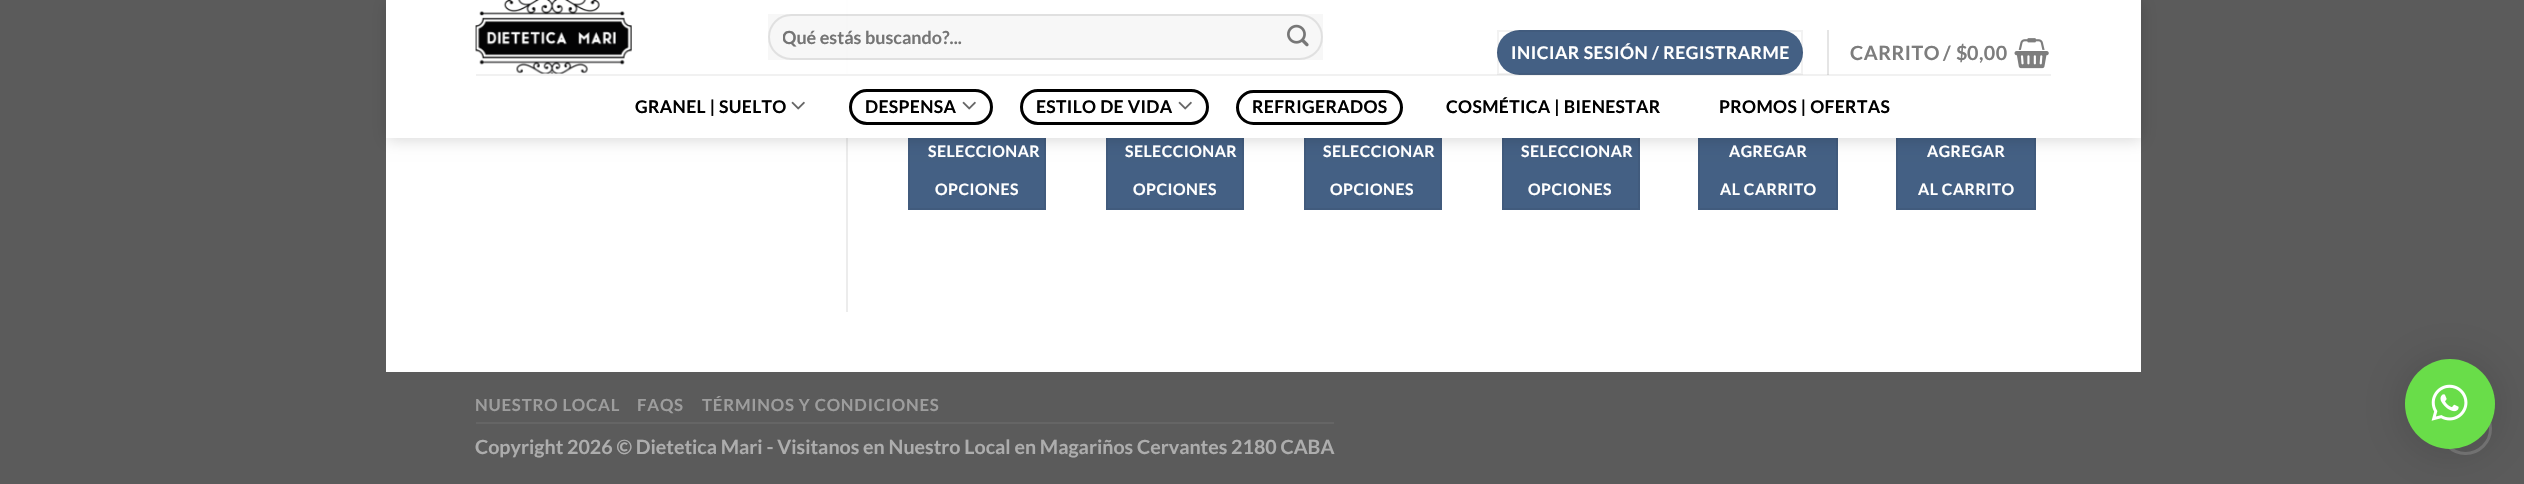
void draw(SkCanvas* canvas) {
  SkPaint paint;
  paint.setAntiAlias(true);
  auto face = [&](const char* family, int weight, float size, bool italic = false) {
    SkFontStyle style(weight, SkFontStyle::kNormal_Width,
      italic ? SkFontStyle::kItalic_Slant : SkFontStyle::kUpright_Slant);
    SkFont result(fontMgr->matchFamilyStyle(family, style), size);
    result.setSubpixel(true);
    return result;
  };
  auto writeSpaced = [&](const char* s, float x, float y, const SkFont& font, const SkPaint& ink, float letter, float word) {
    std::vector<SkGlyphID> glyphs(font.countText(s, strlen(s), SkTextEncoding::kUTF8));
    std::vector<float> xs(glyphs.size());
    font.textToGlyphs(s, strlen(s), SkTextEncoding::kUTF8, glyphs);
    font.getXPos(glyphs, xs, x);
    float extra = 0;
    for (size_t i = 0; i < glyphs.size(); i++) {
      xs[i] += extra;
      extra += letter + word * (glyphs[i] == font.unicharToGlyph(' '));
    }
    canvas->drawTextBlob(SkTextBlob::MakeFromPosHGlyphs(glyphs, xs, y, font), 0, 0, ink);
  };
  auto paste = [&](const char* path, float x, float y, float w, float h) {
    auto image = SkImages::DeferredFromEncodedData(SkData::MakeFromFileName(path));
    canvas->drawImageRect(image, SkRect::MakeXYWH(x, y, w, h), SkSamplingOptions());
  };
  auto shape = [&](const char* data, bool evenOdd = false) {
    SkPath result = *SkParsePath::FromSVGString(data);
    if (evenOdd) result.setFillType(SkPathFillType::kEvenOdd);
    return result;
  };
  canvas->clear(0xff5b5b5b);
  {
    const struct { float x, y, w, h; SkColor color; } items[] = {
      {386, 0, 1755, 372, 0xffffffff},
      {846, 0, 2, 312, 0xffececec},
      {910, 138, 134, 70, 0xff446084},
    };
    for (auto [x, y, w, h, color] : items) {
      paint.setColor(color);
      canvas->drawRect(SkRect::MakeXYWH(x, y, w, h), paint);
    }
  }
  paint.setStroke(true);
  paint.setStrokeWidth(2);
  paint.setColor(0xff415b7d);
  canvas->drawRect(SkRect::MakeXYWH(909, 133, 136, 76), paint);
  paint.setStroke(false);
  paint.setColor(0xff446084);
  canvas->drawRect(SkRect::MakeXYWH(1108, 138, 134, 70), paint);
  paint.setStroke(true);
  paint.setColor(0xff415b7d);
  canvas->drawRect(SkRect::MakeXYWH(1107, 133, 136, 76), paint);
  paint.setStroke(false);
  paint.setColor(0xff446084);
  canvas->drawRect(SkRect::MakeXYWH(1306, 138, 134, 70), paint);
  paint.setStroke(true);
  paint.setColor(0xff415b7d);
  canvas->drawRect(SkRect::MakeXYWH(1305, 133, 136, 76), paint);
  paint.setStroke(false);
  paint.setColor(0xff446084);
  canvas->drawRect(SkRect::MakeXYWH(1504, 138, 134, 70), paint);
  paint.setStroke(true);
  paint.setColor(0xff415b7d);
  canvas->drawRect(SkRect::MakeXYWH(1503, 133, 136, 76), paint);
  paint.setStroke(false);
  paint.setColor(0xff446084);
  canvas->drawRect(SkRect::MakeXYWH(1700, 138, 136, 70), paint);
  paint.setStroke(true);
  paint.setColor(0xff415b7d);
  canvas->drawRect(SkRect::MakeXYWH(1699, 133, 138, 76), paint);
  paint.setStroke(false);
  paint.setColor(0xff446084);
  canvas->drawRect(SkRect::MakeXYWH(1898, 138, 136, 70), paint);
  paint.setStroke(true);
  paint.setColor(0xff415b7d);
  canvas->drawRect(SkRect::MakeXYWH(1897, 133, 138, 76), paint);
  canvas->save();
  canvas->clipPath(shape("M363 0H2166V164H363ZM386 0H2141V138H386Z", true), true);
  paint.setStroke(false);
  paint.setColor(0x26000000);
  paint.setMaskFilter(SkMaskFilter::MakeBlur(kNormal_SkBlurStyle, 7.5f));
  canvas->drawRect(SkRect::MakeXYWH(387, 2, 1755, 138), paint);
  paint.setMaskFilter(nullptr);
  canvas->restore();
  paint.setColor(0xe6ffffff);
  canvas->drawRect(SkRect::MakeXYWH(846, 0, 1295, 74), paint);
  paste("img/1.png", 475, 0, 157, 74);
  paint.setColor(0x08000000);
  canvas->drawRect(SkRect::MakeXYWH(768, 14, 555, 46), paint);
  paint.setStroke(true);
  paint.setColor(0x17000000);
  canvas->drawRoundRect(SkRect::MakeXYWH(769, 15, 553, 44), 22, 22, paint);
  paste("img/2.png", 1287, 24, 22, 23);
  paint.setStroke(false);
  paint.setColor(0xffffffff);
  canvas->drawRect(SkRect::MakeXYWH(846, 74, 1295, 64), paint);
  paint.setColor(0xff446084);
  canvas->drawRoundRect(SkRect::MakeXYWH(1497, 30, 306, 45), 22.5f, 22.5f, paint);
  paint.setStroke(true);
  paint.setColor(0x0d000000);
  canvas->drawRect(SkRect::MakeXYWH(1498, 31, 304, 43), paint);
  paint.setStroke(false);
  paint.setColor(0x1a000000);
  canvas->drawRect(SkRect::MakeXYWH(1827, 30, 2, 45), paint);
  paste("img/3.png", 2014, 38, 35, 31);
  paint.setColor(0x1a777777);
  canvas->drawRect(SkRect::MakeXYWH(476, 74, 1575, 2), paint);
  paste("img/4.png", 791, 101, 14, 9);
  paint.setStroke(true);
  paint.setStrokeWidth(3);
  paint.setColor(0xff000000);
  canvas->drawRoundRect(SkRect::MakeXYWH(850.5f, 90.5f, 141, 33), 16.5f, 16.5f, paint);
  paste("img/4.png", 962, 101, 14, 9);
  canvas->drawRoundRect(SkRect::MakeXYWH(1021.5f, 90.5f, 186, 33), 16.5f, 16.5f, paint);
  paste("img/4.png", 1178, 101, 14, 9);
  canvas->drawRoundRect(SkRect::MakeXYWH(1237.5f, 91.5f, 164, 32), 16, 16, paint);
  paint.setStroke(false);
  paint.setColor(0xff656565);
  canvas->drawRect(SkRect::MakeXYWH(476, 422, 858, 2), paint);
  paint.setStroke(true);
  paint.setColor(0xff777777);
  canvas->drawCircle(2465.5f, 428.5f, 25, paint);
  paint.setStroke(false);
  paint.setColor(0x29000000);
  paint.setMaskFilter(SkMaskFilter::MakeBlur(kNormal_SkBlurStyle, 24));
  canvas->drawRoundRect(SkRect::MakeXYWH(2405, 362, 90, 90), 45, 45, paint);
  paint.setMaskFilter(nullptr);
  paint.setColor(0xff69dd49);
  canvas->drawCircle(2450, 404, 45, paint);
  paste("img/5.png", 2431, 384, 37, 37);
  canvas->save();
  canvas->clipRect(SkRect::MakeXYWH(783, 26, 519, 22));
  auto f0 = face("Lato", 700, 18);
  paint.setColor(0xff757575);
  canvas->drawString("Qué estás buscando?...", 782, 44, f0, paint);
  canvas->restore();
  auto f1 = face("Lato", 700, 17.5f);
  paint.setColor(0xffffffff);
  writeSpaced("INICIAR SESIÓN / REGISTRARME", 1511, 59, f1, paint, 0.5f, 0);
  auto f2 = face("Lato", 700, 19.65f);
  paint.setColor(0xff7d7d7d);
  {
    const struct { const char* s; float x, y; } items[] = {
      {"CARRITO", 1850, 60},
      {"/", 1943, 60},
      {"$", 1956, 60},
      {"0,00", 1967, 60},
    };
    for (auto [s, x, y] : items) {
      writeSpaced(s, x, y, f2, paint, 0.5f, 0);
    }
  }
  paint.setColor(0xff000000);
  {
    const struct { const char* s; float x, y; } items[] = {
      {"GRANEL | SUELTO", 635, 113},
      {"DESPENSA", 865, 113},
      {"ESTILO DE VIDA", 1036, 113},
      {"REFRIGERADOS", 1252, 113},
      {"COSMÉTICA | BIENESTAR", 1446, 113},
      {"PROMOS | OFERTAS", 1719, 113},
    };
    for (auto [s, x, y] : items) {
      writeSpaced(s, x, y, f1, paint, 0.35f, 0);
    }
  }
  auto f3 = face("Lato", 700, 15.75f);
  paint.setColor(0xffffffff);
  {
    const struct { const char* s; float x, y; } items[] = {
      {"SELECCIONAR", 928, 157},
      {"OPCIONES", 935, 195},
      {"SELECCIONAR", 1125, 157},
      {"OPCIONES", 1133, 195},
      {"SELECCIONAR", 1323, 157},
      {"OPCIONES", 1330, 195},
      {"SELECCIONAR", 1521, 157},
      {"OPCIONES", 1528, 195},
      {"AGREGAR", 1729, 157},
      {"AL CARRITO", 1720, 195},
      {"AGREGAR", 1927, 157},
      {"AL CARRITO", 1918, 195},
    };
    for (auto [s, x, y] : items) {
      writeSpaced(s, x, y, f3, paint, 0.5f, 0);
    }
  }
  auto f4 = face("Lato", 700, 16.75f);
  paint.setColor(0xff9d9d9d);
  {
    const struct { const char* s; float x, y; } items[] = {
      {"NUESTRO LOCAL", 475, 411},
      {"FAQS", 637, 411},
      {"TÉRMINOS Y CONDICIONES", 702, 411},
    };
    for (auto [s, x, y] : items) {
      writeSpaced(s, x, y, f4, paint, 0.8f, 0);
    }
  }
  paint.setColor(0xffadadad);
  canvas->drawString("Copyright 2026 © Dietetica Mari - Visitanos en Nuestro Local en Magariños Cervantes 2180 CABA", 475, 454, f2, paint);
}
